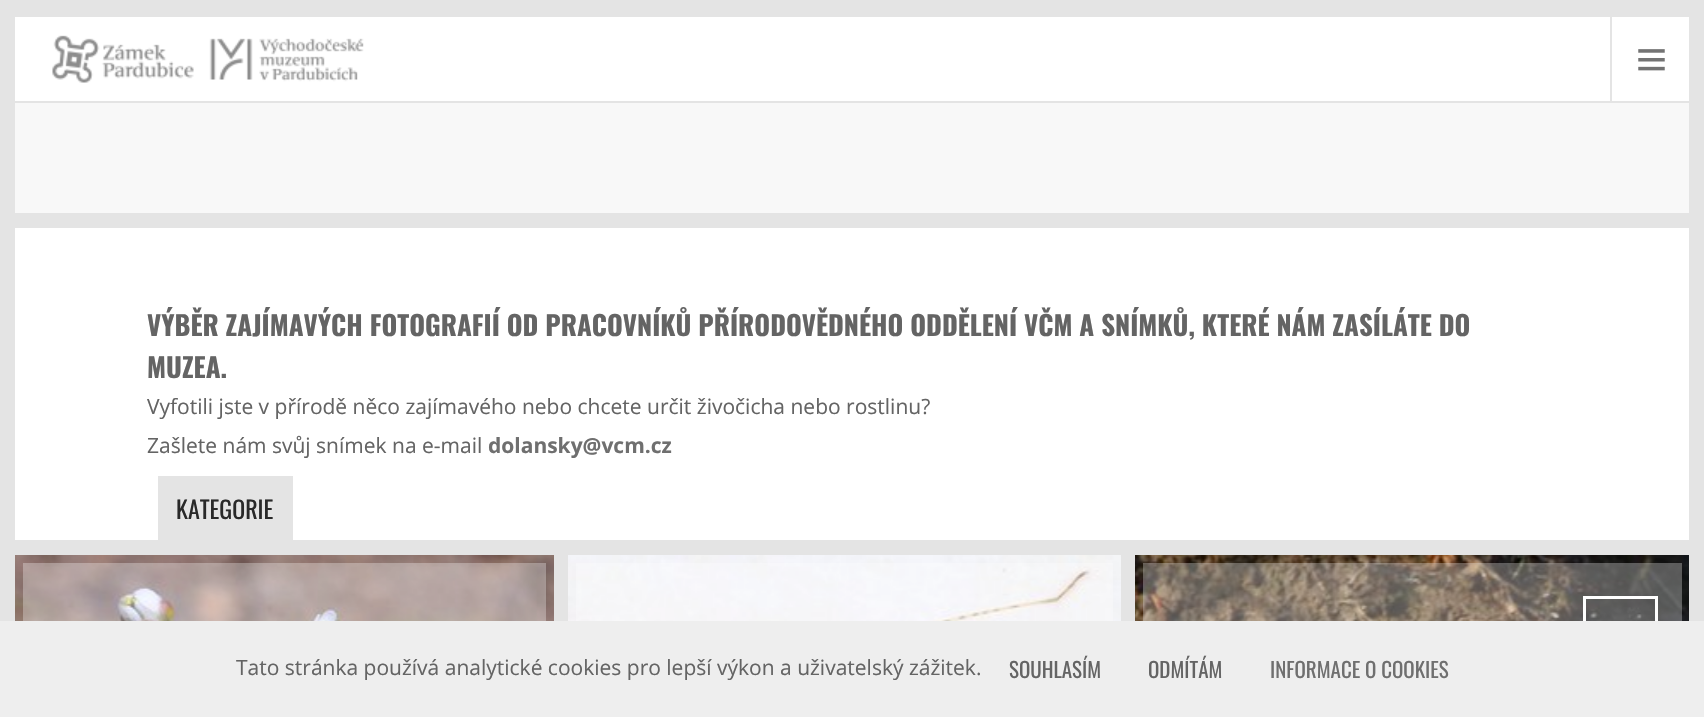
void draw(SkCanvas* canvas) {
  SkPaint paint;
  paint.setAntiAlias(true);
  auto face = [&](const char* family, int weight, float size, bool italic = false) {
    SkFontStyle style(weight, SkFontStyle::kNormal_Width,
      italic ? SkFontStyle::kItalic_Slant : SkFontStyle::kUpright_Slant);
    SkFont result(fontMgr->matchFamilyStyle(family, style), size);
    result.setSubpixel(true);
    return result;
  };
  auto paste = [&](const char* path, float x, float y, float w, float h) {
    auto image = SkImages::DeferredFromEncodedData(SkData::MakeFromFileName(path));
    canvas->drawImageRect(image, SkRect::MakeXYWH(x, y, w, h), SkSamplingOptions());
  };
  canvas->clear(0xffffffff);
  {
    const struct { float x, y, w, h; SkColor color; } items[] = {
      {0, 0, 1704, 15, 0xffe4e4e4},
      {0, 15, 15, 198, 0xffe4e4e4},
      {15, 15, 1674, 2, 0xffe4e4e4},
      {15, 101, 1674, 2, 0xffe4e4e4},
    };
    for (auto [x, y, w, h, color] : items) {
      paint.setColor(color);
      canvas->drawRect(SkRect::MakeXYWH(x, y, w, h), paint);
    }
  }
  paste("img/1.png", 52, 35, 312, 48);
  canvas->drawRect(SkRect::MakeXYWH(1610, 17, 2, 84), paint);
  paste("img/2.png", 1638, 49, 27, 22);
  canvas->drawRect(SkRect::MakeXYWH(1121, 555, 15, 66), paint);
  paste("img/5.png", 1135, 555, 554, 66);
  paint.setStroke(true);
  paint.setStrokeWidth(75);
  paint.setColor(0x4dffffff);
  canvas->drawRect(SkRect::MakeXYWH(1180.5f, 600.5f, 464, 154), paint);
  paint.setStrokeWidth(3);
  paint.setColor(0xffffffff);
  canvas->drawRect(SkRect::MakeXYWH(1584.5f, 597.5f, 72, 72), paint);
  paint.setStroke(false);
  paint.setColor(0xfff8f8f8);
  canvas->drawRect(SkRect::MakeXYWH(15, 103, 1674, 110), paint);
  paint.setStroke(true);
  paint.setStrokeWidth(15);
  paint.setColor(0xffe4e4e4);
  canvas->drawRect(SkRect::MakeXYWH(7.5f, 220.5f, 1689, 327), paint);
  paint.setStroke(false);
  canvas->drawRect(SkRect::MakeXYWH(158, 476, 135, 64), paint);
  paint.setStroke(true);
  canvas->drawRect(SkRect::MakeXYWH(7.5f, 547.5f, 554, 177), paint);
  paste("img/3.png", 15, 555, 539, 66);
  paint.setStrokeWidth(75);
  paint.setColor(0x4dffffff);
  canvas->drawRect(SkRect::MakeXYWH(60.5f, 600.5f, 448, 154), paint);
  paste("img/4.png", 568, 555, 553, 66);
  canvas->drawRect(SkRect::MakeXYWH(613.5f, 600.5f, 462, 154), paint);
  paint.setStroke(false);
  paint.setColor(0xffe4e4e4);
  canvas->drawRect(SkRect::MakeXYWH(1689, 15, 15, 606), paint);
  paint.setColor(0xffeeeeee);
  canvas->drawRect(SkRect::MakeXYWH(0, 621, 1704, 96), paint);
  auto f0 = face("Oswald", 700, 27);
  paint.setColor(0xff646464);
  canvas->drawString("VÝBĚR ZAJÍMAVÝCH FOTOGRAFIÍ OD PRACOVNÍKŮ PŘÍRODOVĚDNÉHO ODDĚLENÍ VČM A SNÍMKŮ, KTERÉ NÁM ZASÍLÁTE DO", 147, 336, f0, paint);
  canvas->drawString("MUZEA.", 147, 378, f0, paint);
  auto f1 = face("Open Sans", 400, 21);
  canvas->drawString("Vyfotili jste v přírodě něco zajímavého nebo chcete určit živočicha nebo rostlinu?", 147, 414, f1, paint);
  canvas->drawString("Zašlete nám svůj snímek na e-mail", 147, 453, f1, paint);
  auto f2 = face("Open Sans", 700, 21);
  paint.setColor(0xff6f6f6f);
  canvas->drawString("dolansky@vcm.cz", 488, 453, f2, paint);
  auto f3 = face("Oswald", 400, 24);
  paint.setColor(0xff292929);
  canvas->drawString("KATEGORIE", 176, 519, f3, paint);
  paint.setColor(0xff646464);
  canvas->drawString("Tato stránka používá analytické cookies pro lepší výkon a uživatelský zážitek.", 236, 675, f1, paint);
  auto f4 = face("Oswald", 400, 21);
  canvas->drawString("SOUHLASÍM", 1009, 678, f4, paint);
  canvas->drawString("ODMÍTÁM", 1148, 678, f4, paint);
  paint.setColor(0xff6f6f6f);
  canvas->drawString("INFORMACE O COOKIES", 1270, 678, f4, paint);
}
